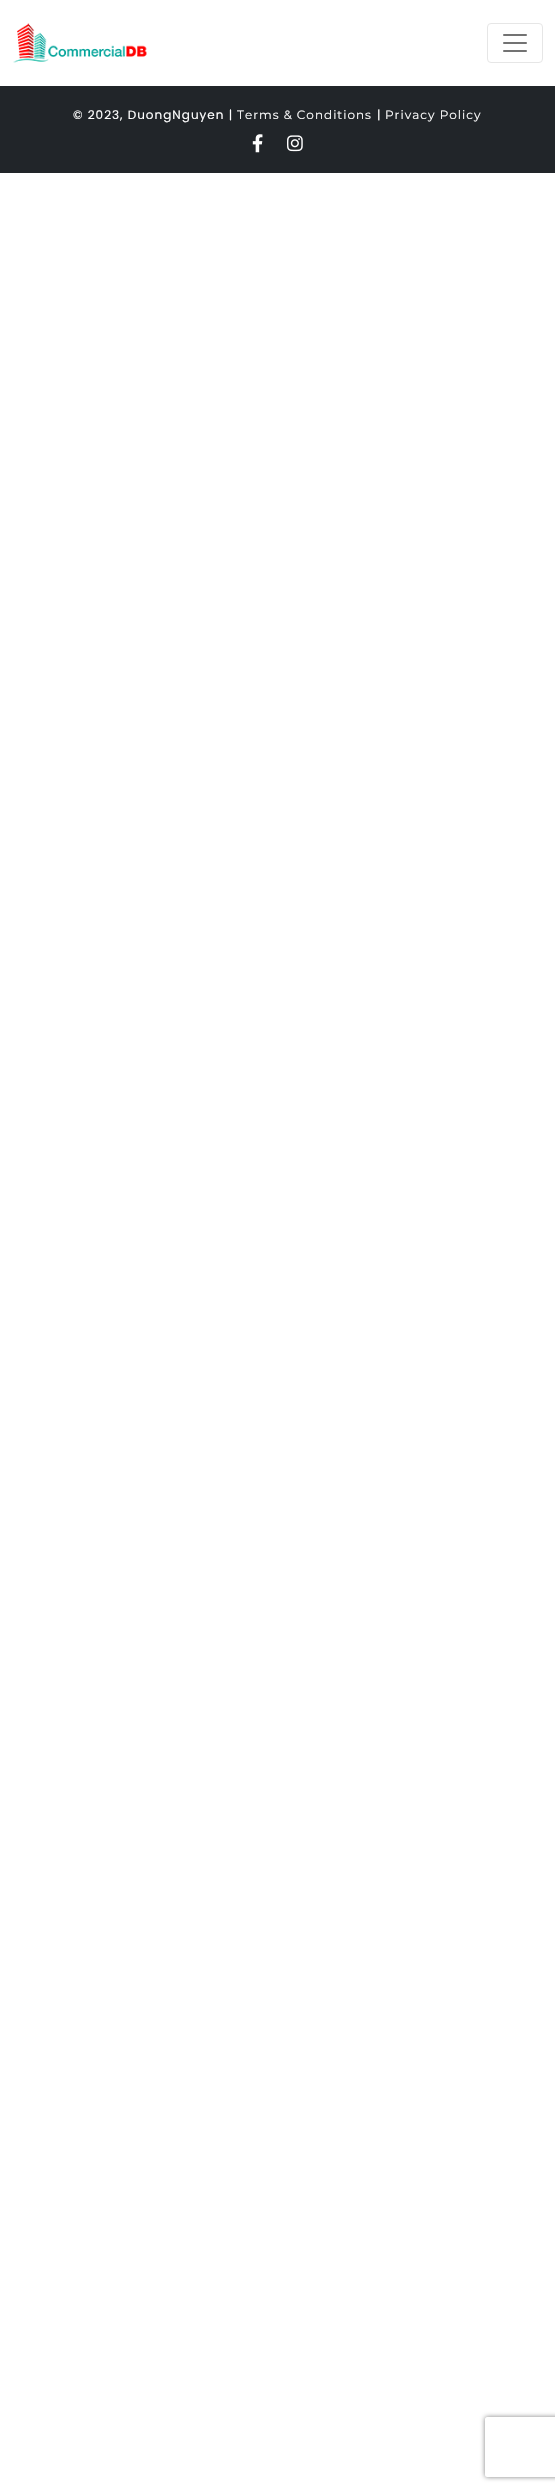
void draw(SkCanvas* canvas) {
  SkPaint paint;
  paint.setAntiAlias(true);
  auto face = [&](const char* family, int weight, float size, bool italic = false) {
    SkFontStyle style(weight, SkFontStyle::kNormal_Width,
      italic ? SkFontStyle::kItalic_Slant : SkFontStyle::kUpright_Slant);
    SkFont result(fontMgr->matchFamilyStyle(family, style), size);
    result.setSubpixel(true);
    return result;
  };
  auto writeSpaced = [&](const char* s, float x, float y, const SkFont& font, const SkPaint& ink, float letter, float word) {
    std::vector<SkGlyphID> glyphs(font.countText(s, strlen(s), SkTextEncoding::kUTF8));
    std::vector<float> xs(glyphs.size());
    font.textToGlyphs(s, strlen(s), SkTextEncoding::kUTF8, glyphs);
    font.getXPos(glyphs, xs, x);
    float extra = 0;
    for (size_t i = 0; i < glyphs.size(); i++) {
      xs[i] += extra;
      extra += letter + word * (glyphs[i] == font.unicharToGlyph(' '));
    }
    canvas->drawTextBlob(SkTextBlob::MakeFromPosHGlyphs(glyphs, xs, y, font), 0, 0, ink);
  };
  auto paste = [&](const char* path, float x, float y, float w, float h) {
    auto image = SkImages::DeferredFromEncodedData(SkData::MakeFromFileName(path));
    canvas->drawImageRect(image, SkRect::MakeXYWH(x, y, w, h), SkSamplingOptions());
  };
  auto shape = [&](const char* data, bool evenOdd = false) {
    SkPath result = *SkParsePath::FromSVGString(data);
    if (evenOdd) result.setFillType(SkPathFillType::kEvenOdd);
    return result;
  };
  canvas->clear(0xffffffff);
  paste("img/1.png", 13, 23, 134, 40);
  paint.setStroke(true);
  paint.setStrokeWidth(1);
  paint.setColor(0xffe6e6e6);
  canvas->drawRoundRect(SkRect::MakeXYWH(487.5f, 23.5f, 55, 39), 3.5f, 3.5f, paint);
  paste("img/2.png", 503, 34, 24, 18);
  paint.setStroke(false);
  paint.setColor(0xff212529);
  canvas->drawRect(SkRect::MakeXYWH(0, 86, 555, 87), paint);
  paste("img/3.png", 252, 134, 11, 19);
  paste("img/4.png", 287, 135, 16, 17);
  canvas->save();
  canvas->clipPath(shape("M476 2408H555V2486H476ZM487 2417H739C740 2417 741 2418 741 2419V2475C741 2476 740 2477 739 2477H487C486 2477 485 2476 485 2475V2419C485 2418 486 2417 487 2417Z", true), true);
  paint.setColor(0xff808080);
  paint.setMaskFilter(SkMaskFilter::MakeBlur(kNormal_SkBlurStyle, 2.5f));
  canvas->drawRoundRect(SkRect::MakeXYWH(485, 2417, 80, 60), 2, 2, paint);
  paint.setMaskFilter(nullptr);
  canvas->restore();
  auto f0 = face("Poppins", 400, 12);
  paint.setColor(0xffffffff);
  writeSpaced("© 2023, DuongNguyen |", 73, 119, f0, paint, 1, 0);
  auto f1 = face("Montserrat", 400, 12);
  writeSpaced("Terms & Conditions", 237, 119, f1, paint, 1, 0);
  writeSpaced("|", 377, 119, f0, paint, 1, 0);
  writeSpaced("Privacy Policy", 385, 119, f1, paint, 1, 0);
}
